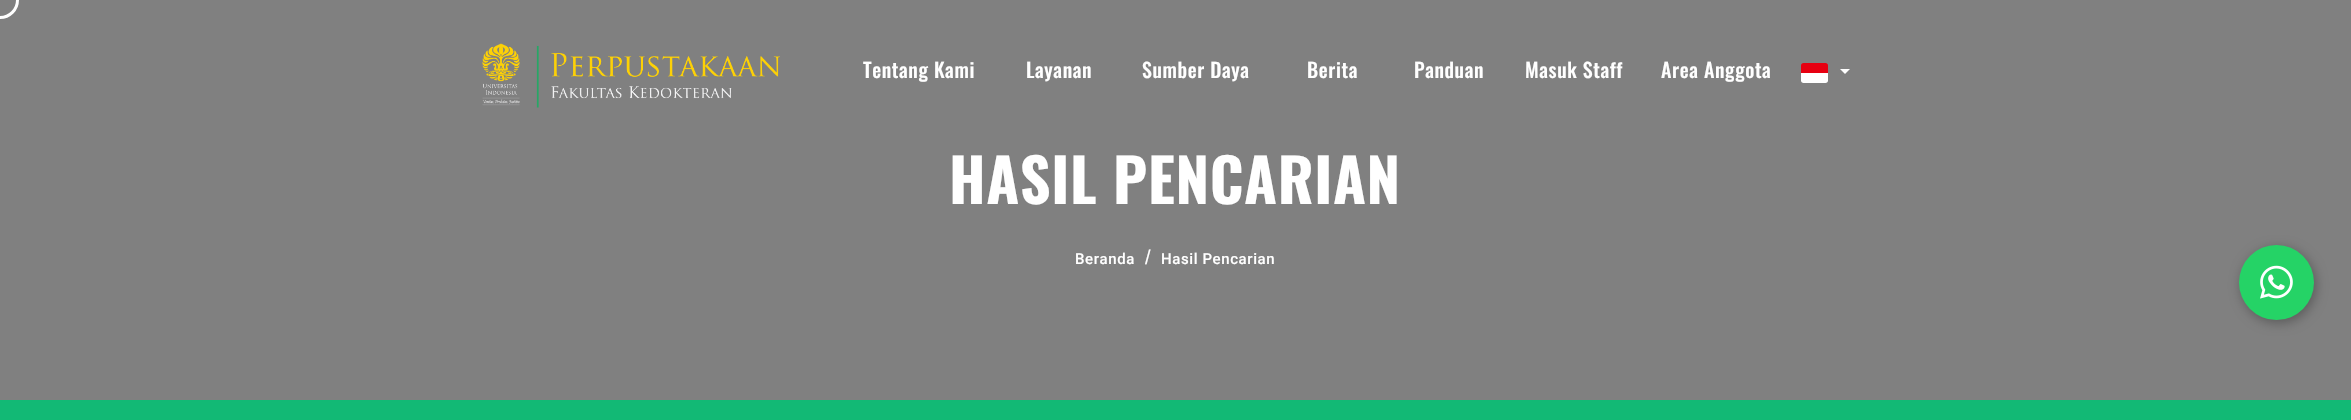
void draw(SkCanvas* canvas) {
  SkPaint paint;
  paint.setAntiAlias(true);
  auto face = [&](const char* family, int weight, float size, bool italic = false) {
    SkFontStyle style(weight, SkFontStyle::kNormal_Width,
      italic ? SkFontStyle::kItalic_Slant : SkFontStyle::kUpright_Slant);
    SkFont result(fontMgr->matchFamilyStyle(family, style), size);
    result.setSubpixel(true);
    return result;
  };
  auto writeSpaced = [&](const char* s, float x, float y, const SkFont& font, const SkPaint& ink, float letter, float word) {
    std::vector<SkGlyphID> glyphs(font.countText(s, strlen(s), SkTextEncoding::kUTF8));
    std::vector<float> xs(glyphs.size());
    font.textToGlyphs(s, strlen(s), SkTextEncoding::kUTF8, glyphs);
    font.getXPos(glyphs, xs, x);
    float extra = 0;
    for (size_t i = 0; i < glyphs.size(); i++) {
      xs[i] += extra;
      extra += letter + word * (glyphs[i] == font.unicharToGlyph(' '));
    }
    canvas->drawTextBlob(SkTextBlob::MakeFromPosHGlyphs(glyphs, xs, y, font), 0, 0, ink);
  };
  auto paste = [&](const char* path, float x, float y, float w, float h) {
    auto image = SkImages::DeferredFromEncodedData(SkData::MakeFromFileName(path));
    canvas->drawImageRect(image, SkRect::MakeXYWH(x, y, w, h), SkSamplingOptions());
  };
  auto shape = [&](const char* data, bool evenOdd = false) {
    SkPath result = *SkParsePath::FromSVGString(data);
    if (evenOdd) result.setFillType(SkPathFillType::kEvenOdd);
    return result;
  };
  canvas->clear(0xff808080);
  paint.setStroke(true);
  paint.setStrokeWidth(3);
  paint.setColor(0xffffffff);
  canvas->drawCircle(0, 0, 17.5f, paint);
  paste("img/1.png", 482, 43, 298, 65);
  paint.setStroke(false);
  paint.setColor(0xffe70011);
  canvas->drawPath(shape("M1803.5 63H1825.5C1827 63 1828 64 1828 65.5V73H1801V65.5C1801 64 1802 63 1803.5 63Z"), paint);
  paint.setColor(0xffffffff);
  canvas->drawPath(shape("M1801 73H1828V80.5C1828 82 1827 83 1825.5 83H1803.5C1802 83 1801 82 1801 80.5Z"), paint);
  canvas->drawPath(shape("M1840 69H1850L1845 74Z"), paint);
  paint.setColor(0x4d000000);
  paint.setMaskFilter(SkMaskFilter::MakeBlur(kNormal_SkBlurStyle, 6));
  canvas->drawRoundRect(SkRect::MakeXYWH(2241, 248, 75, 75), 37.5f, 37.5f, paint);
  paint.setMaskFilter(nullptr);
  paint.setColor(0xff25d366);
  canvas->drawCircle(2276.5f, 282.5f, 37.5f, paint);
  paste("img/2.png", 2260, 265, 33, 34);
  paint.setColor(0xff12b975);
  canvas->drawRect(SkRect::MakeXYWH(0, 400, 2351, 20), paint);
  auto f0 = face("Oswald", 500, 20);
  paint.setColor(0xffffffff);
  {
    const struct { const char* s; float x, y; } items[] = {
      {"Tentang Kami", 863, 78},
      {"Layanan", 1026, 78},
      {"Sumber Daya", 1142, 78},
      {"Berita", 1307, 78},
      {"Panduan", 1414, 78},
      {"Masuk Staff", 1525, 78},
      {"Area Anggota", 1661, 78},
    };
    for (auto [s, x, y] : items) {
      writeSpaced(s, x, y, f0, paint, 0.6f, 0);
    }
  }
  auto f1 = face("Oswald", 700, 60);
  writeSpaced("HASIL PENCARIAN", 949, 204, f1, paint, 0.6f, 0);
  auto f2 = face("Roboto", 500, 15);
  writeSpaced("Beranda", 1075, 264, f2, paint, 0.6f, 0);
  auto f3 = face("Liberation Sans", 400, 20);
  writeSpaced("/", 1145, 264, f3, paint, 0.6f, 0);
  writeSpaced("Hasil Pencarian", 1161, 264, f2, paint, 0.6f, 0);
}
